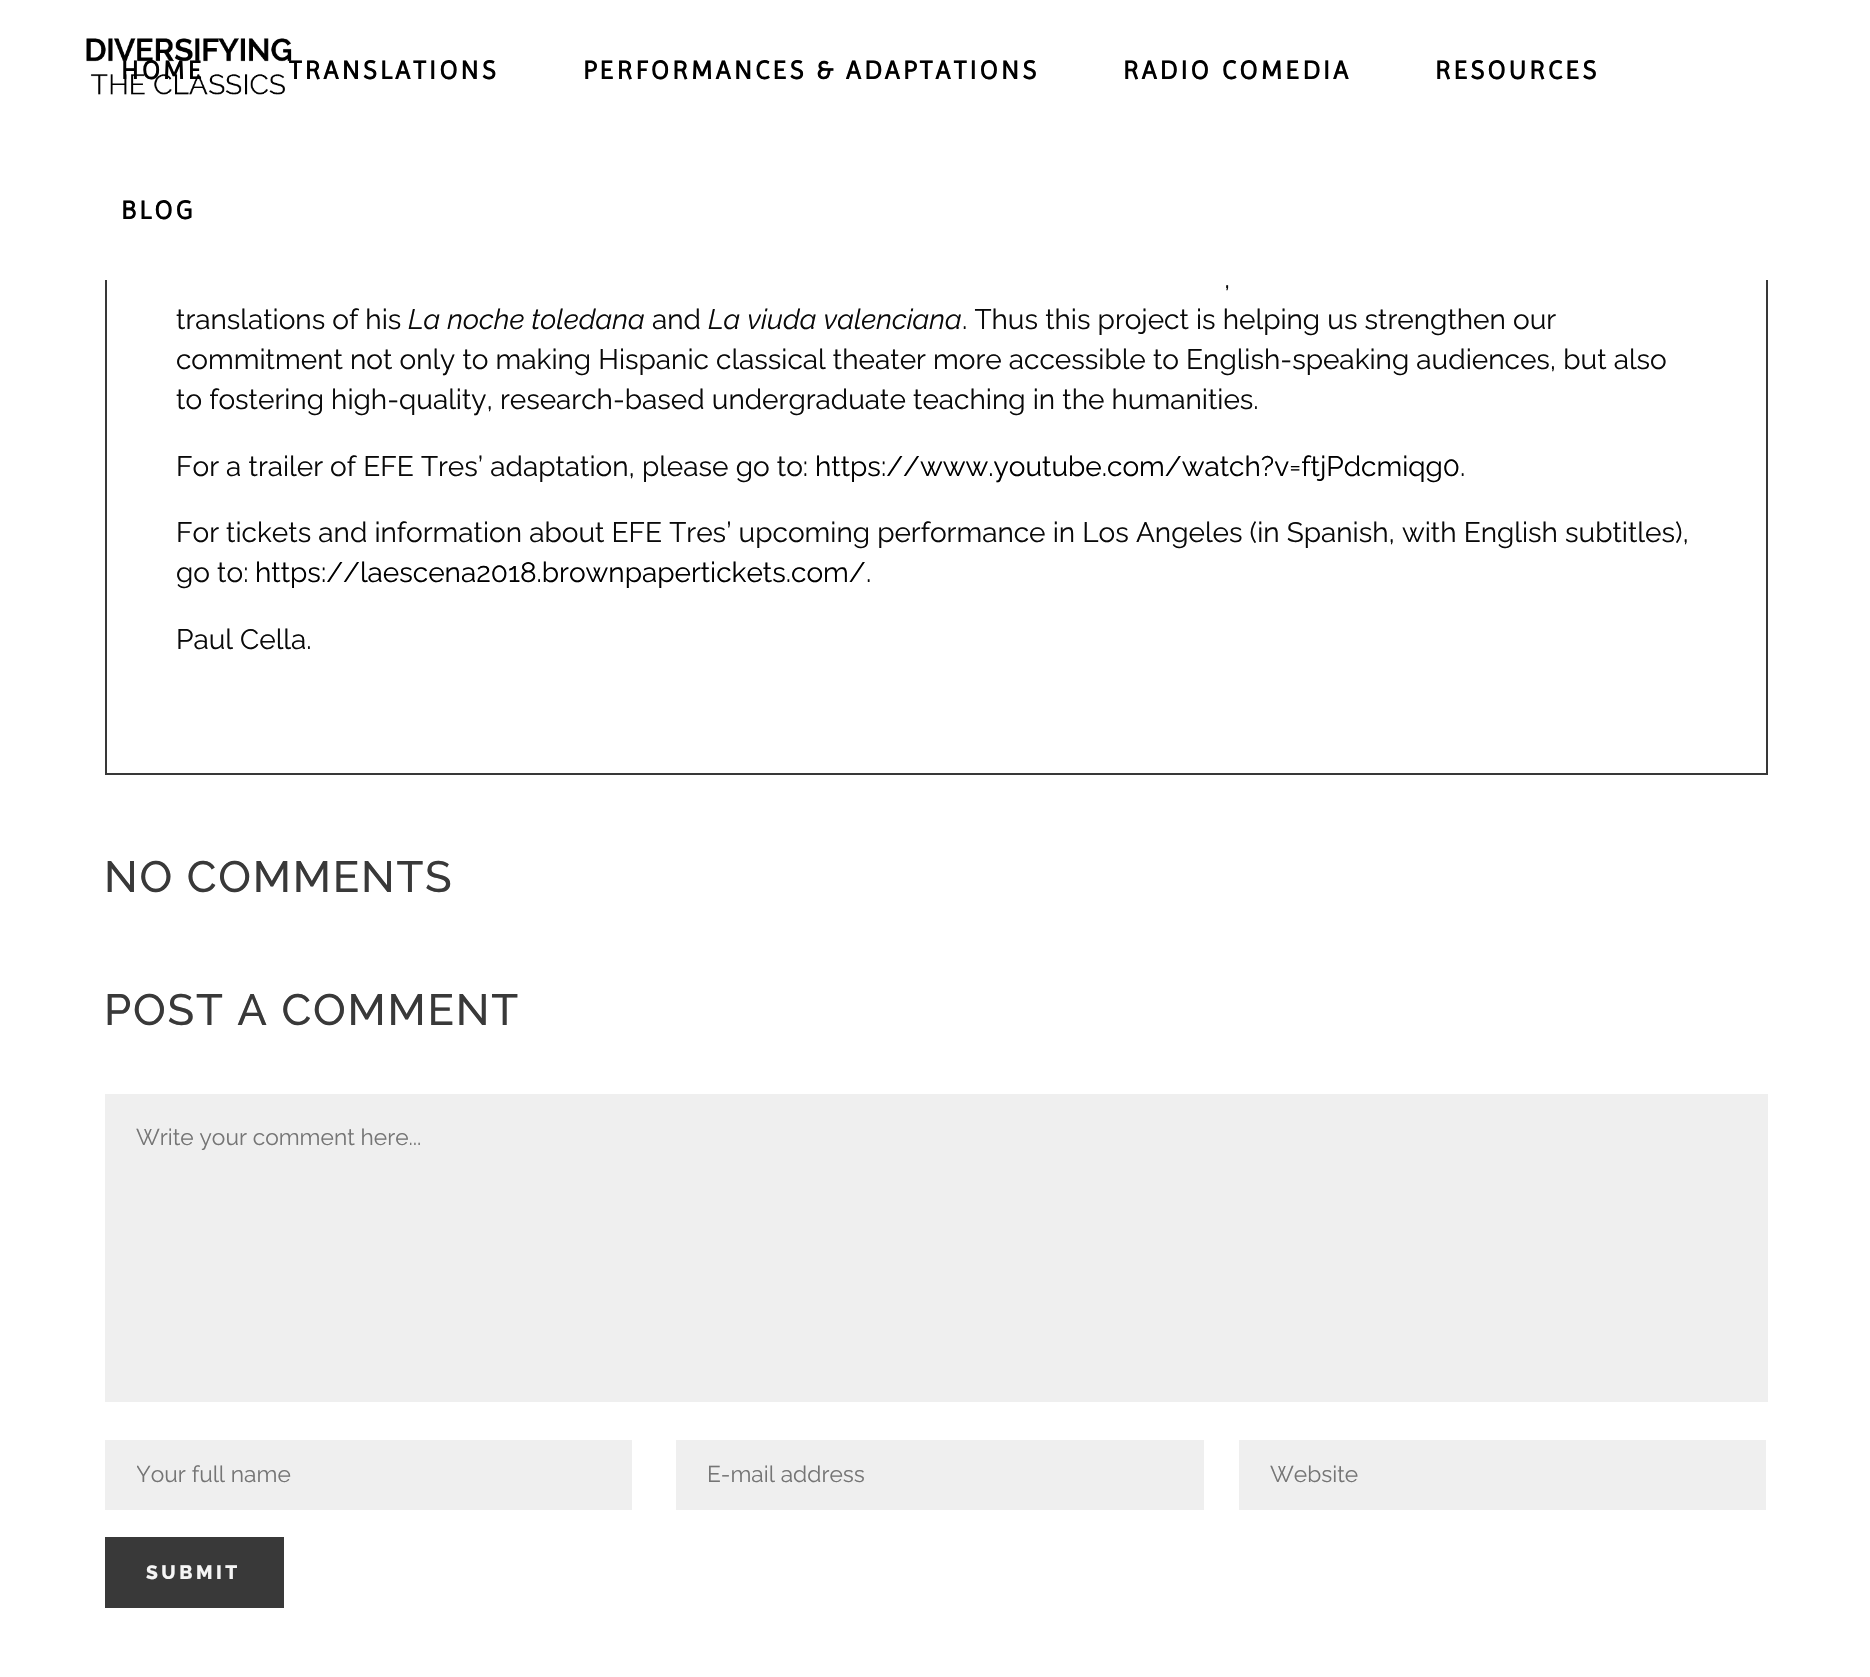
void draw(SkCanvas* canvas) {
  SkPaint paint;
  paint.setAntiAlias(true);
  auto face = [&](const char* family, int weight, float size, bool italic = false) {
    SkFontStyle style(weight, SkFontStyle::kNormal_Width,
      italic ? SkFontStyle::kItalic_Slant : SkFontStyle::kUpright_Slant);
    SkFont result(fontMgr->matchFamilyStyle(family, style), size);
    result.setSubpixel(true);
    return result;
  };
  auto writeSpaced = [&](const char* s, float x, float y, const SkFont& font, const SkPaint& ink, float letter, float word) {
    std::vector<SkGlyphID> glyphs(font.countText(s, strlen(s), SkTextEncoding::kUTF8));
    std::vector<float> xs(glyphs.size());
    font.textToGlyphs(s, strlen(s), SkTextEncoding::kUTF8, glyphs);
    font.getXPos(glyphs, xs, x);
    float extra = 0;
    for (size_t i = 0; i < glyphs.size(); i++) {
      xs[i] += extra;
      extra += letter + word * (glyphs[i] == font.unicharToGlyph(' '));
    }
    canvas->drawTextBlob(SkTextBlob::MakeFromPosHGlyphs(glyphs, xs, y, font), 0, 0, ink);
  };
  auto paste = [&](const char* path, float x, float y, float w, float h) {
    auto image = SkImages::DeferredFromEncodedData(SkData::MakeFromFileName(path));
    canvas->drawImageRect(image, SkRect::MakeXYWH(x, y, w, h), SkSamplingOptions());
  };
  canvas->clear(0xffffffff);
  paint.setStroke(true);
  paint.setStrokeWidth(2);
  paint.setColor(0xff383838);
  canvas->drawRect(SkRect::MakeXYWH(106, -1, 1661, 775), paint);
  paint.setStroke(false);
  paint.setColor(0xffffffff);
  canvas->drawRect(SkRect::MakeXYWH(105, 0, 1663, 280), paint);
  paste("img/1.png", 86, 38, 206, 57);
  {
    const struct { float x, y, w, h; SkColor color; } items[] = {
      {105, 1094, 1663, 308, 0xffefefef},
      {105, 1440, 527, 70, 0xffefefef},
      {676, 1440, 528, 70, 0xffefefef},
      {1239, 1440, 527, 70, 0xffefefef},
      {105, 1537, 179, 71, 0xff393939},
    };
    for (auto [x, y, w, h, color] : items) {
      paint.setColor(color);
      canvas->drawRect(SkRect::MakeXYWH(x, y, w, h), paint);
    }
  }
  auto f0 = face("Imprima", 700, 26.25f);
  paint.setColor(0xff000000);
  {
    const struct { const char* s; float x, y; } items[] = {
      {"HOME", 121, 79},
      {"TRANSLATIONS", 289, 79},
      {"PERFORMANCES & ADAPTATIONS", 583, 79},
      {"RADIO COMEDIA", 1123, 79},
      {"RESOURCES", 1435, 79},
      {"BLOG", 121, 219},
    };
    for (auto [s, x, y] : items) {
      writeSpaced(s, x, y, f0, paint, 3.5f, 0);
    }
  }
  auto f1 = face("Raleway", 400, 28);
  paint.setColor(0xff0a0a0a);
  canvas->drawString(",", 1224, 288, f1, paint);
  canvas->drawString("translations of his", 176, 329, f1, paint);
  auto f2 = face("Raleway", 400, 28, true);
  canvas->drawString("La noche toledana", 408, 329, f2, paint);
  canvas->drawString("and", 652, 329, f1, paint);
  canvas->drawString("La viuda valenciana", 708, 329, f2, paint);
  {
    const struct { const char* s; float x, y; } items[] = {
      {". Thus this project is helping us strengthen our", 962, 329},
      {"commitment not only to making Hispanic classical theater more accessible to English-speaking audiences, but also", 176, 369},
      {"to fostering high-quality, research-based undergraduate teaching in the humanities.", 176, 409},
      {"For a trailer of EFE Tres’ adaptation, please go to:", 176, 476},
    };
    for (auto [s, x, y] : items) {
      canvas->drawString(s, x, y, f1, paint);
    }
  }
  paint.setColor(0xff000000);
  canvas->drawString("https://www.youtube.com/watch?v=ftjPdcmiqg0", 815, 476, f1, paint);
  paint.setColor(0xff0a0a0a);
  {
    const struct { const char* s; float x, y; } items[] = {
      {".", 1460, 476},
      {"For tickets and information about EFE Tres’ upcoming performance in Los Angeles (in Spanish, with English subtitles),", 176, 542},
      {"go to:", 176, 582},
    };
    for (auto [s, x, y] : items) {
      canvas->drawString(s, x, y, f1, paint);
    }
  }
  paint.setColor(0xff000000);
  canvas->drawString("https://laescena2018.brownpapertickets.com/", 255, 582, f1, paint);
  paint.setColor(0xff0a0a0a);
  canvas->drawString(".", 866, 582, f1, paint);
  canvas->drawString("Paul Cella.", 176, 649, f1, paint);
  auto f3 = face("Raleway", 500, 43.75f);
  paint.setColor(0xff393939);
  writeSpaced("NO COMMENTS", 104, 892, f3, paint, 1.75f, 0);
  writeSpaced("POST A COMMENT", 104, 1025, f3, paint, 1.75f, 0);
  auto f4 = face("Raleway", 400, 22.75f);
  paint.setColor(0xff757575);
  canvas->drawString("Write your comment here...", 136, 1145, f4, paint);
  canvas->save();
  canvas->clipRect(SkRect::MakeXYWH(137, 1461, 463, 27));
  canvas->drawString("Your full name", 136, 1482, f4, paint);
  canvas->restore();
  canvas->drawString("E-mail address", 707, 1482, f4, paint);
  canvas->drawString("Website", 1270, 1482, f4, paint);
  auto f5 = face("Raleway", 800, 19.25f);
  paint.setColor(0xfff5f5f5);
  writeSpaced("SUBMIT", 146, 1579, f5, paint, 3.5f, 0);
}
